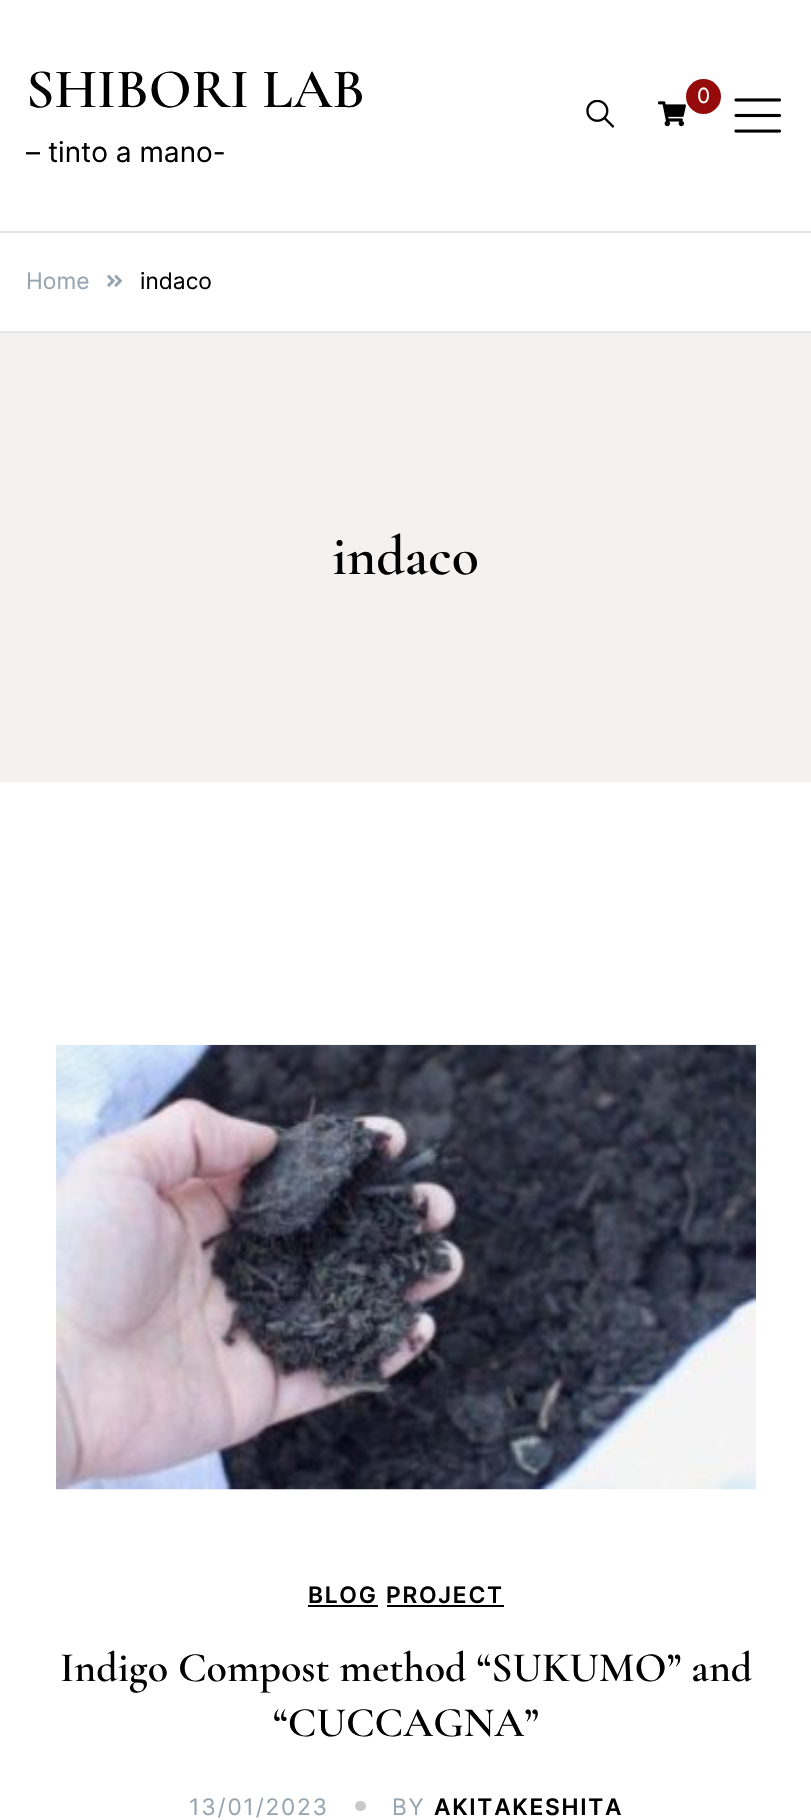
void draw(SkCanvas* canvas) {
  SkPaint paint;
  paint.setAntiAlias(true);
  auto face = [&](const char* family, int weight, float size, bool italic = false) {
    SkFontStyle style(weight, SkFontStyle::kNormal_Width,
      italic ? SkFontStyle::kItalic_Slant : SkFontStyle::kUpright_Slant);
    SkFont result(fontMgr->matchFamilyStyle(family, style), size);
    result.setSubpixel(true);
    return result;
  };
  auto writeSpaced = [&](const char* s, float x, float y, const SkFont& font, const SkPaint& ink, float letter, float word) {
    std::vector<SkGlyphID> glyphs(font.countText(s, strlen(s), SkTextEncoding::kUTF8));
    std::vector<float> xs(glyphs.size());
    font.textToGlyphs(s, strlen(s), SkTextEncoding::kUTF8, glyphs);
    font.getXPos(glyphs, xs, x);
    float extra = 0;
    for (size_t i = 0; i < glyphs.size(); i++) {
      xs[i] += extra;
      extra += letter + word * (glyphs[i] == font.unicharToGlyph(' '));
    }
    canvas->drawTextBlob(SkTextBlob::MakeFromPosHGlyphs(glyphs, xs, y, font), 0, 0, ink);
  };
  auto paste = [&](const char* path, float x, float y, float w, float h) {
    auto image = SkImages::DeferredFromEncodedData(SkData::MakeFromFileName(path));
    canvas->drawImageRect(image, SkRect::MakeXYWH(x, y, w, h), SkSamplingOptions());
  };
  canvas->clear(0xffffffff);
  paint.setColor(0xffe4e6ea);
  canvas->drawRect(SkRect::MakeXYWH(0, 231, 811, 2), paint);
  paint.setColor(0xff950b0b);
  canvas->drawCircle(703.5f, 96.5f, 17.5f, paint);
  paste("img/1.png", 658, 101, 28, 26);
  paste("img/2.png", 586, 100, 28, 28);
  paste("img/3.png", 734, 98, 48, 35);
  paint.setColor(0xffe4e6ea);
  canvas->drawRect(SkRect::MakeXYWH(0, 331, 811, 2), paint);
  paste("img/4.png", 107, 274, 15, 13);
  paint.setColor(0xfff4f2f1);
  canvas->drawRect(SkRect::MakeXYWH(0, 333, 811, 449), paint);
  paste("img/5.png", 56, 1044, 700, 446);
  paint.setColor(0xff000000);
  canvas->drawRect(SkRect::MakeXYWH(308, 1605, 70, 2), paint);
  canvas->drawRect(SkRect::MakeXYWH(387, 1605, 117, 2), paint);
  paint.setColor(0xffc9c9c9);
  canvas->drawRoundRect(SkRect::MakeXYWH(355, 1801, 11, 10), 5, 5, paint);
  auto f0 = face("Cormorant Garamond", 600, 56);
  paint.setColor(0xff000000);
  canvas->drawString("SHIBORI LAB", 26, 107, f0, paint);
  auto f1 = face("Inter", 400, 28);
  canvas->drawString("– tinto a mano-", 26, 162, f1, paint);
  auto f2 = face("Inter", 400, 21);
  paint.setColor(0xffffffff);
  canvas->drawString("0", 697, 103, f2, paint);
  auto f3 = face("Inter", 400, 22.75f);
  paint.setColor(0xff97a5b1);
  canvas->drawString("Home", 26, 289, f3, paint);
  paint.setColor(0xff000000);
  canvas->drawString("indaco", 140, 289, f3, paint);
  canvas->drawString("indaco", 332, 574, f0, paint);
  auto f4 = face("Inter", 600, 22.75f);
  writeSpaced("BLOG", 308, 1603, f4, paint, 1.75f, 0);
  writeSpaced("PROJECT", 386, 1603, f4, paint, 1.75f, 0);
  auto f5 = face("Cormorant Garamond", 600, 42);
  canvas->drawString("Indigo Compost method “SUKUMO” and", 60, 1681, f5, paint);
  canvas->drawString("“CUCCAGNA”", 273, 1736, f5, paint);
  paint.setColor(0xff97a5b1);
  writeSpaced("13/01/2023", 189, 1815, f3, paint, 1.75f, 0);
  writeSpaced("BY", 392, 1815, f3, paint, 1.75f, 0);
  paint.setColor(0xff000000);
  writeSpaced("AKITAKESHITA", 434, 1815, f4, paint, 1.75f, 0);
}
